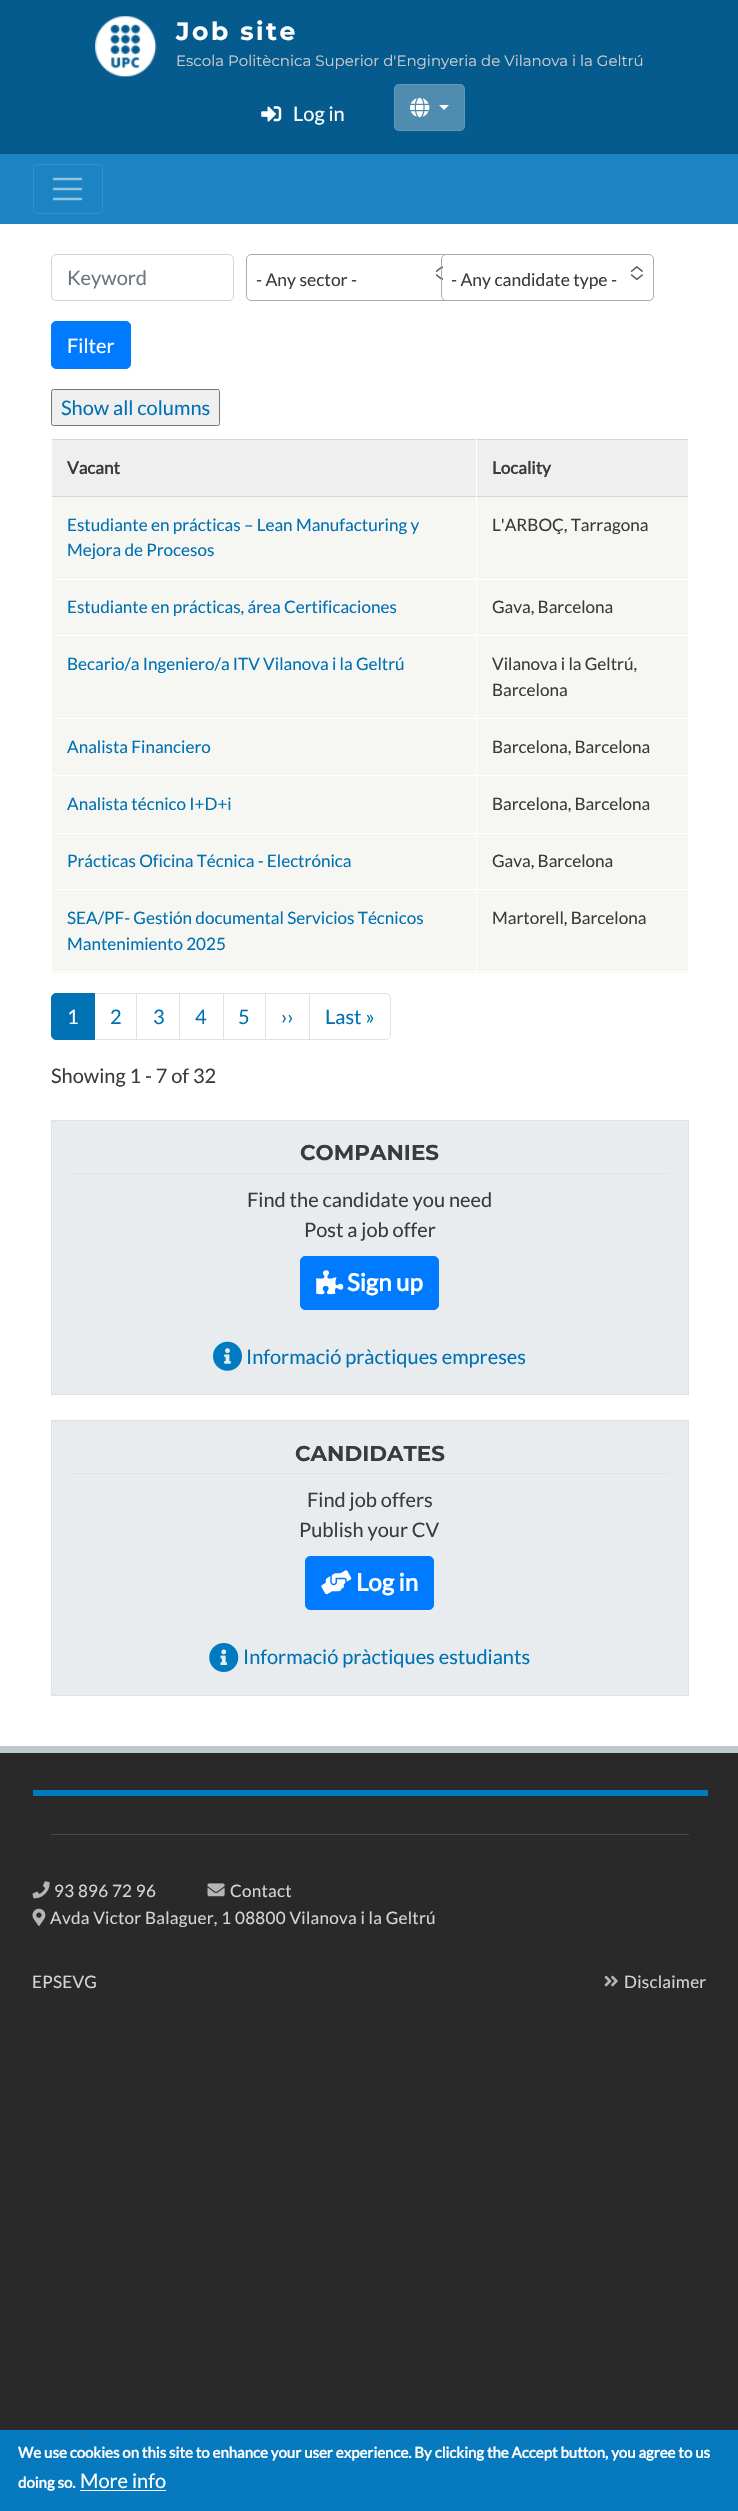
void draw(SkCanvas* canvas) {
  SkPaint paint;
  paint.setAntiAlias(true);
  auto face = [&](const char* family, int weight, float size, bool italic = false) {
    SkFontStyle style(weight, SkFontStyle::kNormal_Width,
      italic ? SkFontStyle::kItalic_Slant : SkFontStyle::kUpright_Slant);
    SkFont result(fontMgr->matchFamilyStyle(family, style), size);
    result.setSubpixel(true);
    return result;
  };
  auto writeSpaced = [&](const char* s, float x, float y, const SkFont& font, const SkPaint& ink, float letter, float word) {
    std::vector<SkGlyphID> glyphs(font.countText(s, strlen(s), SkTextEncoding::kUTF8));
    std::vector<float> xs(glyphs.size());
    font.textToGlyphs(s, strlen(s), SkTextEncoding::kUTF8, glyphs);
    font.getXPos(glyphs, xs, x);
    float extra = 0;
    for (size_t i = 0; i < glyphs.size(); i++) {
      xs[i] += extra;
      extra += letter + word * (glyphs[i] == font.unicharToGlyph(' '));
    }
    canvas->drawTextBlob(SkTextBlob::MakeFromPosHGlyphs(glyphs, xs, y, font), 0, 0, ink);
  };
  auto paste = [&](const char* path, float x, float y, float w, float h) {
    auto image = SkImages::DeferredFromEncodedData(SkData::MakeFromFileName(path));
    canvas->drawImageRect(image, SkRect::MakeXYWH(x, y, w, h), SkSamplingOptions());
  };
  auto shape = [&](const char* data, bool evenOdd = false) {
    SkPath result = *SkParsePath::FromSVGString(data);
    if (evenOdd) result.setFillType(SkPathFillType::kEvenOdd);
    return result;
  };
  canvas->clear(0xff292929);
  paint.setColor(0xffffffff);
  canvas->drawRect(SkRect::MakeXYWH(0, 224, 738, 1522), paint);
  paint.setColor(0xff055a8e);
  canvas->drawRect(SkRect::MakeXYWH(0, 0, 738, 154), paint);
  paste("img/1.png", 95, 16, 62, 61);
  paste("img/2.png", 261, 106, 21, 16);
  paint.setColor(0xff508cb0);
  canvas->drawRoundRect(SkRect::MakeXYWH(394, 84, 71, 47), 5, 5, paint);
  paint.setStroke(true);
  paint.setStrokeWidth(1);
  paint.setColor(0x1affffff);
  canvas->drawRoundRect(SkRect::MakeXYWH(394.5f, 84.5f, 70, 46), 4.5f, 4.5f, paint);
  paste("img/3.png", 410, 97, 20, 21);
  paint.setStroke(false);
  paint.setColor(0xffffffff);
  canvas->drawPath(shape("M439 105H449L444 110Z"), paint);
  paint.setColor(0xff1d84c3);
  canvas->drawRect(SkRect::MakeXYWH(0, 154, 738, 70), paint);
  paint.setStroke(true);
  paint.setColor(0xff3490c9);
  canvas->drawRoundRect(SkRect::MakeXYWH(33.5f, 164.5f, 69, 49), 4.5f, 4.5f, paint);
  paint.setStrokeWidth(2.5f);
  paint.setStrokeCap(SkPaint::kRound_Cap);
  paint.setColor(0xff8ec2e1);
  canvas->drawPath(shape("M54 179H81M54 189H81M54 199H81"), paint);
  paint.setStrokeWidth(1);
  paint.setStrokeCap(SkPaint::kButt_Cap);
  paint.setColor(0xffced4da);
  canvas->drawRoundRect(SkRect::MakeXYWH(51.5f, 254.5f, 182, 46), 4.5f, 4.5f, paint);
  paint.setColor(0xffaaaaaa);
  canvas->drawRoundRect(SkRect::MakeXYWH(246.5f, 254.5f, 212, 46), 4.5f, 4.5f, paint);
  paste("img/4.png", 435, 266, 8, 14);
  paint.setStroke(false);
  paint.setColor(0xffffffff);
  canvas->drawRoundRect(SkRect::MakeXYWH(443, 255, 210, 45), 4, 4, paint);
  paint.setStroke(true);
  paint.setColor(0xffaaaaaa);
  canvas->drawRoundRect(SkRect::MakeXYWH(441.5f, 254.5f, 212, 46), 4.5f, 4.5f, paint);
  paste("img/5.png", 630, 266, 13, 14);
  paint.setStroke(false);
  paint.setColor(0xff007bff);
  canvas->drawRoundRect(SkRect::MakeXYWH(51.5f, 321.5f, 79, 47), 4.5f, 4.5f, paint);
  paint.setStroke(true);
  canvas->drawRoundRect(SkRect::MakeXYWH(51.5f, 321.5f, 79, 47), 4.5f, 4.5f, paint);
  paint.setStroke(false);
  paint.setColor(0xffefefef);
  canvas->drawRoundRect(SkRect::MakeXYWH(51.5f, 389.5f, 168, 36), 2, 2, paint);
  paint.setStroke(true);
  paint.setColor(0xff767676);
  canvas->drawRoundRect(SkRect::MakeXYWH(51.5f, 389.5f, 168, 36), 2, 2, paint);
  paint.setStroke(false);
  {
    const struct { float x, y, w, h; SkColor color; } items[] = {
      {52, 440, 636, 56, 0xffefefef},
      {51, 439, 638, 1, 0xffd6d6d6},
      {52, 497, 636, 82, 0xfff6f6f2},
      {51, 496, 638, 1, 0xffd6d6d6},
      {52, 580, 636, 55, 0xfff6f6f2},
      {52, 636, 636, 82, 0xfff6f6f2},
      {52, 719, 636, 56, 0xfff6f6f2},
      {52, 776, 636, 57, 0xfff6f6f2},
      {52, 834, 636, 55, 0xfff6f6f2},
      {52, 890, 636, 83, 0xfff6f6f2},
      {476, 971, 213, 1, 0xffffffff},
      {476, 579, 1, 394, 0xffffffff},
      {476, 496, 1, 84, 0xffffffff},
      {476, 439, 1, 59, 0xffffffff},
      {51, 439, 1, 1, 0xffffffff},
      {688, 439, 1, 1, 0xffffffff},
      {51, 496, 1, 1, 0xffffffff},
      {688, 496, 1, 1, 0xffffffff},
      {51, 971, 427, 1, 0xffffffff},
    };
    for (auto [x, y, w, h, color] : items) {
      paint.setColor(color);
      canvas->drawRect(SkRect::MakeXYWH(x, y, w, h), paint);
    }
  }
  paint.setStroke(true);
  paint.setColor(0xffdee2e6);
  canvas->drawRect(SkRect::MakeXYWH(94.5f, 993.5f, 43, 46), paint);
  paint.setStroke(false);
  paint.setColor(0xff0071b3);
  canvas->drawPath(shape("M56 993.5H94.5V1039.5H56C53.5 1039.5 51.5 1037.5 51.5 1035V998C51.5 995.5 53.5 993.5 56 993.5Z"), paint);
  paint.setStroke(true);
  canvas->drawPath(shape("M56 993.5H94.5V1039.5H56C53.5 1039.5 51.5 1037.5 51.5 1035V998C51.5 995.5 53.5 993.5 56 993.5Z"), paint);
  paint.setStroke(false);
  paint.setColor(0xffffffff);
  canvas->drawRect(SkRect::MakeXYWH(137, 994, 1, 45), paint);
  paint.setStroke(true);
  paint.setColor(0xffdee2e6);
  canvas->drawRect(SkRect::MakeXYWH(136.5f, 993.5f, 43, 46), paint);
  canvas->drawRect(SkRect::MakeXYWH(179.5f, 993.5f, 44, 46), paint);
  canvas->drawRect(SkRect::MakeXYWH(223.5f, 993.5f, 42, 46), paint);
  canvas->drawRect(SkRect::MakeXYWH(265.5f, 993.5f, 44, 46), paint);
  paint.setStroke(false);
  paint.setColor(0xffffffff);
  canvas->drawPath(shape("M309.5 993.5H386C388.5 993.5 390.5 995.5 390.5 998V1035C390.5 1037.5 388.5 1039.5 386 1039.5H309.5Z"), paint);
  paint.setStroke(true);
  paint.setColor(0xffdee2e6);
  canvas->drawPath(shape("M309.5 993.5H386C388.5 993.5 390.5 995.5 390.5 998V1035C390.5 1037.5 388.5 1039.5 386 1039.5H309.5Z"), paint);
  paint.setStroke(false);
  paint.setColor(0xffe9ecef);
  canvas->drawRect(SkRect::MakeXYWH(51.5f, 1120.5f, 637, 274), paint);
  paint.setStroke(true);
  paint.setColor(0xffdee2e6);
  canvas->drawRect(SkRect::MakeXYWH(51.5f, 1120.5f, 637, 274), paint);
  paint.setStroke(false);
  canvas->drawRect(SkRect::MakeXYWH(71, 1173, 598, 1), paint);
  paint.setColor(0xff007bff);
  canvas->drawRoundRect(SkRect::MakeXYWH(300.5f, 1256.5f, 138, 53), 4.5f, 4.5f, paint);
  paint.setStroke(true);
  canvas->drawRoundRect(SkRect::MakeXYWH(300.5f, 1256.5f, 138, 53), 4.5f, 4.5f, paint);
  paste("img/6.png", 316, 1270, 28, 25);
  paste("img/7.png", 213, 1341, 29, 30);
  paint.setStroke(false);
  paint.setColor(0xffe9ecef);
  canvas->drawRect(SkRect::MakeXYWH(51.5f, 1420.5f, 637, 275), paint);
  paint.setStroke(true);
  paint.setColor(0xffdee2e6);
  canvas->drawRect(SkRect::MakeXYWH(51.5f, 1420.5f, 637, 275), paint);
  paint.setStroke(false);
  canvas->drawRect(SkRect::MakeXYWH(71, 1473, 598, 1), paint);
  paint.setColor(0xff007bff);
  canvas->drawRoundRect(SkRect::MakeXYWH(305.5f, 1556.5f, 128, 53), 4.5f, 4.5f, paint);
  paint.setStroke(true);
  canvas->drawRoundRect(SkRect::MakeXYWH(305.5f, 1556.5f, 128, 53), 4.5f, 4.5f, paint);
  paste("img/8.png", 321, 1570, 31, 25);
  paste("img/9.png", 209, 1643, 30, 29);
  paint.setStroke(false);
  {
    const struct { float x, y, w, h; SkColor color; } items[] = {
      {0, 1746, 738, 7, 0xffbdc8cf},
      {33, 1790, 675, 6, 0xff007bc0},
      {51, 1834, 638, 1, 0xff494949},
    };
    for (auto [x, y, w, h, color] : items) {
      paint.setColor(color);
      canvas->drawRect(SkRect::MakeXYWH(x, y, w, h), paint);
    }
  }
  paste("img/10.png", 32, 1881, 18, 18);
  paste("img/11.png", 207, 1883, 18, 14);
  paste("img/12.png", 32, 1908, 14, 18);
  paste("img/13.png", 604, 1975, 14, 12);
  paint.setColor(0xff0779bf);
  canvas->drawRect(SkRect::MakeXYWH(0, 2430, 738, 81), paint);
  paint.setColor(0xffffffff);
  canvas->drawRect(SkRect::MakeXYWH(80, 2490, 86, 1), paint);
  auto f0 = face("Montserrat", 700, 25);
  writeSpaced("Job site", 176, 40, f0, paint, 2.5f, 0);
  auto f1 = face("Montserrat", 400, 15);
  paint.setColor(0xffcccccc);
  canvas->drawString("Escola Politècnica Superior d'Enginyeria de Vilanova i la Geltrú", 176, 66, f1, paint);
  auto f2 = face("Lato", 400, 20);
  paint.setColor(0xffffffff);
  canvas->drawString("Log in", 293, 121, f2, paint);
  paint.setColor(0xff6c757d);
  canvas->drawString("Keyword", 67, 285, f2, paint);
  auto f3 = face("Lato", 400, 17.5f);
  paint.setColor(0xff3b3b3b);
  canvas->drawString("- Any sector -", 256, 286, f3, paint);
  canvas->drawString("- Any candidate type -", 451, 286, f3, paint);
  paint.setColor(0xffffffff);
  canvas->drawString("Filter", 67, 353, f2, paint);
  paint.setColor(0xff0071b3);
  canvas->drawString("Show all columns", 61, 415, f2, paint);
  auto f4 = face("Lato", 700, 17.1f);
  paint.setColor(0xff3b3b3b);
  canvas->drawString("Vacant", 67, 474, f4, paint);
  canvas->drawString("Locality", 492, 474, f4, paint);
  auto f5 = face("Lato", 400, 17.1f);
  paint.setColor(0xff0071b3);
  canvas->drawString("Estudiante en prácticas – Lean Manufacturing y", 67, 531, f5, paint);
  canvas->drawString("Mejora de Procesos", 67, 556, f5, paint);
  paint.setColor(0xff3b3b3b);
  canvas->drawString("L'ARBOÇ, Tarragona", 492, 531, f5, paint);
  paint.setColor(0xff0071b3);
  canvas->drawString("Estudiante en prácticas, área Certificaciones", 67, 613, f5, paint);
  paint.setColor(0xff3b3b3b);
  canvas->drawString("Gava, Barcelona", 492, 613, f5, paint);
  paint.setColor(0xff0071b3);
  canvas->drawString("Becario/a Ingeniero/a ITV Vilanova i la Geltrú", 67, 670, f5, paint);
  paint.setColor(0xff3b3b3b);
  canvas->drawString("Vilanova i la Geltrú,", 492, 670, f5, paint);
  canvas->drawString("Barcelona", 492, 696, f5, paint);
  paint.setColor(0xff0071b3);
  canvas->drawString("Analista Financiero", 67, 753, f5, paint);
  paint.setColor(0xff3b3b3b);
  canvas->drawString("Barcelona, Barcelona", 492, 753, f5, paint);
  paint.setColor(0xff0071b3);
  canvas->drawString("Analista técnico I+D+i", 67, 810, f5, paint);
  paint.setColor(0xff3b3b3b);
  canvas->drawString("Barcelona, Barcelona", 492, 810, f5, paint);
  paint.setColor(0xff0071b3);
  canvas->drawString("Prácticas Oficina Técnica - Electrónica", 67, 867, f5, paint);
  paint.setColor(0xff3b3b3b);
  canvas->drawString("Gava, Barcelona", 492, 867, f5, paint);
  paint.setColor(0xff0071b3);
  canvas->drawString("SEA/PF- Gestión documental Servicios Técnicos", 67, 924, f5, paint);
  canvas->drawString("Mantenimiento 2025", 67, 950, f5, paint);
  paint.setColor(0xff3b3b3b);
  canvas->drawString("Martorell, Barcelona", 492, 924, f5, paint);
  paint.setColor(0xffffffff);
  canvas->drawString("1", 67, 1024, f2, paint);
  paint.setColor(0xff0071b3);
  {
    const struct { const char* s; float x, y; } items[] = {
      {"2", 110, 1024},
      {"3", 153, 1024},
      {"4", 195, 1024},
      {"5", 238, 1024},
      {"››", 281, 1024},
      {"Last »", 325, 1024},
    };
    for (auto [s, x, y] : items) {
      canvas->drawString(s, x, y, f2, paint);
    }
  }
  paint.setColor(0xff3b3b3b);
  canvas->drawString("Showing 1 - 7 of 32", 51, 1083, f2, paint);
  auto f6 = face("Montserrat", 700, 21.5f);
  canvas->drawString("COMPANIES", 300, 1160, f6, paint);
  canvas->drawString("Find the candidate you need", 247, 1207, f2, paint);
  canvas->drawString("Post a job offer", 304, 1237, f2, paint);
  auto f7 = face("Lato", 700, 24);
  paint.setColor(0xffffffff);
  canvas->drawString("Sign up", 347, 1291, f7, paint);
  paint.setColor(0xff0071b3);
  canvas->drawString("Informació pràctiques empreses", 246, 1364, f2, paint);
  paint.setColor(0xff3b3b3b);
  canvas->drawString("CANDIDATES", 295, 1461, f6, paint);
  canvas->drawString("Find job offers", 307, 1507, f2, paint);
  canvas->drawString("Publish your CV", 299, 1537, f2, paint);
  paint.setColor(0xffffffff);
  canvas->drawString("Log in", 356, 1591, f7, paint);
  paint.setColor(0xff0071b3);
  canvas->drawString("Informació pràctiques estudiants", 243, 1664, f2, paint);
  paint.setColor(0xffd4d4d4);
  {
    const struct { const char* s; float x, y; } items[] = {
      {"93 896 72 96", 54, 1897},
      {"Contact", 230, 1897},
      {"Avda Victor Balaguer, 1 08800 Vilanova i la Geltrú", 50, 1924},
      {"EPSEVG", 32, 1988},
      {"Disclaimer", 624, 1988},
    };
    for (auto [s, x, y] : items) {
      writeSpaced(s, x, y, f5, paint, 0.25f, 0);
    }
  }
  auto f8 = face("Lato", 700, 15);
  paint.setColor(0xffffffff);
  canvas->drawString("We use cookies on this site to enhance your user experience. By clicking the Accept button, you agree to us", 18, 2458, f8, paint);
  canvas->drawString("doing so.", 18, 2488, f8, paint);
  canvas->drawString("More info", 80, 2488, f2, paint);
}
